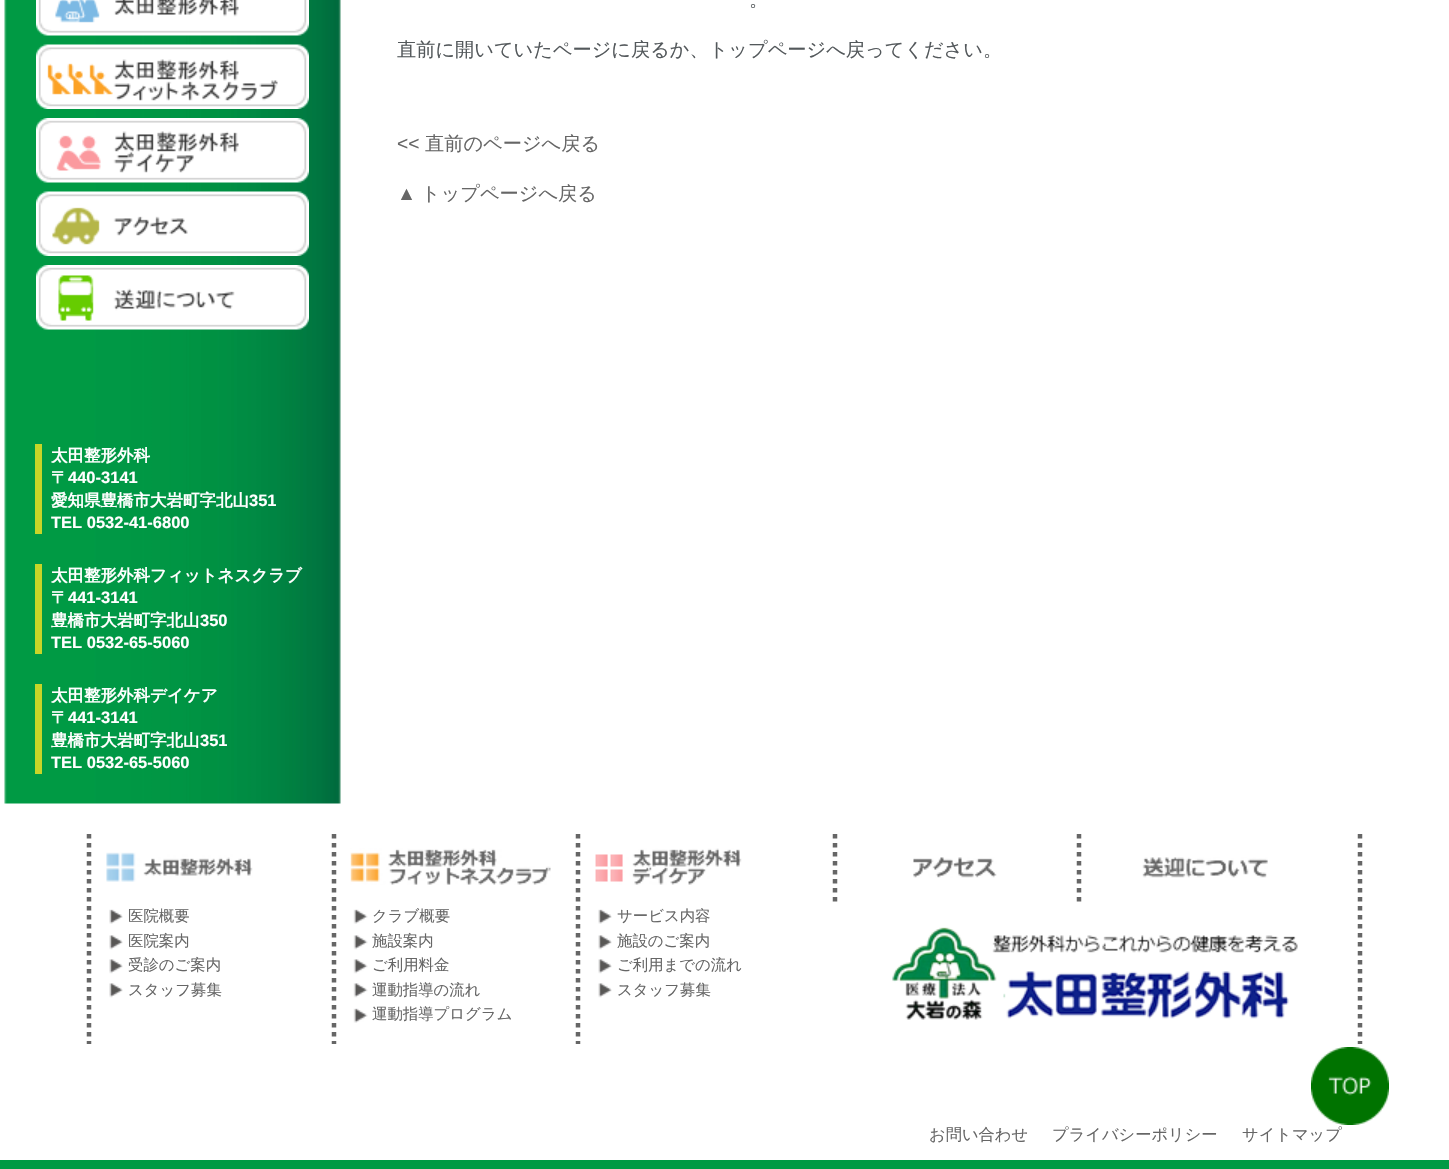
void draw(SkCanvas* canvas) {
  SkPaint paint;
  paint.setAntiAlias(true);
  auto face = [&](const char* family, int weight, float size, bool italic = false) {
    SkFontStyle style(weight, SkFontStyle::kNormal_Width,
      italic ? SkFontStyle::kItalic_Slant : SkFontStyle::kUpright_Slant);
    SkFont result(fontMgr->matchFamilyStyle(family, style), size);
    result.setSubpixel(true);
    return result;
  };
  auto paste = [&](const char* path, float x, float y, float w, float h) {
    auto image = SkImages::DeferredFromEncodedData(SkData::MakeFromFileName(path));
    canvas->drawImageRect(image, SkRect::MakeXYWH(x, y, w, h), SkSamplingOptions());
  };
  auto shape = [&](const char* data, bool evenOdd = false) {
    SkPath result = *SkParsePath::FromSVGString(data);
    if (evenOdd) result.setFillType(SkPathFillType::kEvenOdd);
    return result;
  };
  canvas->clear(0xffffffff);
  paste("img/1.png", 4, 0, 337, 804);
  paste("img/2.png", 36, 0, 273, 36);
  paste("img/3.png", 36, 44, 273, 65);
  paste("img/4.png", 36, 118, 273, 65);
  paste("img/5.png", 36, 191, 273, 65);
  paste("img/6.png", 36, 265, 273, 65);
  {
    const struct { float x, y, w, h; SkColor color; } items[] = {
      {35, 444, 7, 90, 0xffc7d528},
      {35, 564, 7, 90, 0xffc7d528},
      {35, 684, 7, 90, 0xffc7d528},
    };
    for (auto [x, y, w, h, color] : items) {
      paint.setColor(color);
      canvas->drawRect(SkRect::MakeXYWH(x, y, w, h), paint);
    }
  }
  paint.setStroke(true);
  paint.setStrokeWidth(4.5f);
  paint.setColor(0xff666666);
  paint.setPathEffect(SkDashPathEffect::Make({{4.5f, 4.5f}}, 0));
  canvas->drawPath(shape("M89 834V1044"), paint);
  paint.setPathEffect(nullptr);
  paste("img/7.png", 106, 852, 147, 30);
  paste("img/8.png", 109, 909, 14, 15);
  paste("img/9.png", 109, 935, 14, 15);
  paste("img/9.png", 109, 959, 14, 15);
  paste("img/9.png", 109, 983, 14, 15);
  paint.setPathEffect(SkDashPathEffect::Make({{4.5f, 4.5f}}, 0));
  canvas->drawPath(shape("M334 834V1044"), paint);
  paint.setPathEffect(nullptr);
  paste("img/10.png", 350, 848, 201, 37);
  paste("img/11.png", 353, 909, 15, 15);
  paste("img/12.png", 353, 935, 15, 15);
  paste("img/12.png", 353, 959, 15, 15);
  paste("img/12.png", 353, 983, 15, 15);
  paste("img/11.png", 353, 1008, 15, 15);
  paint.setPathEffect(SkDashPathEffect::Make({{4.5f, 4.5f}}, 0));
  canvas->drawPath(shape("M578 834V1044"), paint);
  paint.setPathEffect(nullptr);
  paste("img/13.png", 595, 848, 147, 37);
  paste("img/14.png", 598, 909, 14, 15);
  paste("img/15.png", 598, 935, 14, 15);
  paste("img/15.png", 598, 959, 14, 15);
  paste("img/15.png", 598, 983, 14, 15);
  paint.setPathEffect(SkDashPathEffect::Make({{4.5f, 4.5f}}, 0));
  canvas->drawPath(shape("M1360 834V1044"), paint);
  paint.setPathEffect(nullptr);
  paint.setPathEffect(SkDashPathEffect::Make({{4.5f, 4.5f}}, 0));
  canvas->drawPath(shape("M835 834V901.5"), paint);
  paint.setPathEffect(nullptr);
  paste("img/16.png", 913, 857, 84, 21);
  paint.setPathEffect(SkDashPathEffect::Make({{4.5f, 4.5f}}, 0));
  canvas->drawPath(shape("M1079 834V901.5"), paint);
  paint.setPathEffect(nullptr);
  paste("img/17.png", 1142, 857, 126, 21);
  paste("img/18.png", 892, 927, 406, 93);
  paint.setStroke(false);
  paint.setColor(0xff009a44);
  canvas->drawRect(SkRect::MakeXYWH(0, 1160, 1449, 9), paint);
  paste("img/19.png", 1311, 1047, 78, 78);
  auto f0 = face("WenQuanYi Zen Hei", 500, 19.2f);
  paint.setColor(0xff53585b);
  canvas->drawString("。", 749, 6, f0, paint);
  canvas->drawString("直前に開いていたページに戻るか、トップページへ戻ってください。", 397, 56, f0, paint);
  auto f1 = face("Liberation Sans", 400, 19.2f);
  paint.setColor(0xff666666);
  canvas->drawString("<<", 397, 150, f1, paint);
  canvas->drawString("直前のページへ戻る", 425, 150, f0, paint);
  canvas->drawString("▲", 397, 200, f1, paint);
  canvas->drawString("トップページへ戻る", 421, 200, f0, paint);
  auto f2 = face("WenQuanYi Zen Hei", 700, 16.5f);
  paint.setColor(0xffffffff);
  canvas->drawString("太田整形外科", 51, 461, f2, paint);
  canvas->drawString("〒", 51, 483, f2, paint);
  auto f3 = face("Liberation Sans", 700, 16.5f);
  canvas->drawString("440-3141", 68, 483, f3, paint);
  canvas->drawString("愛知県豊橋市大岩町字北山", 51, 506, f2, paint);
  canvas->drawString("351", 249, 506, f3, paint);
  canvas->drawString("TEL 0532-41-6800", 51, 528, f3, paint);
  canvas->drawString("太田整形外科フィットネスクラブ", 51, 581, f2, paint);
  canvas->drawString("〒", 51, 603, f2, paint);
  canvas->drawString("441-3141", 68, 603, f3, paint);
  canvas->drawString("豊橋市大岩町字北山", 51, 626, f2, paint);
  canvas->drawString("350", 200, 626, f3, paint);
  canvas->drawString("TEL 0532-65-5060", 51, 648, f3, paint);
  canvas->drawString("太田整形外科デイケア", 51, 701, f2, paint);
  canvas->drawString("〒", 51, 723, f2, paint);
  canvas->drawString("441-3141", 68, 723, f3, paint);
  canvas->drawString("豊橋市大岩町字北山", 51, 746, f2, paint);
  canvas->drawString("351", 200, 746, f3, paint);
  canvas->drawString("TEL 0532-65-5060", 51, 768, f3, paint);
  auto f4 = face("WenQuanYi Zen Hei", 500, 15.4f);
  paint.setColor(0xff666666);
  {
    const struct { const char* s; float x, y; } items[] = {
      {"医院概要", 128, 921},
      {"医院案内", 128, 946},
      {"受診のご案内", 128, 970},
      {"スタッフ募集", 128, 995},
      {"クラブ概要", 372, 921},
      {"施設案内", 372, 946},
      {"ご利用料金", 372, 970},
      {"運動指導の流れ", 372, 995},
      {"運動指導プログラム", 372, 1019},
      {"サービス内容", 617, 921},
      {"施設のご案内", 617, 946},
      {"ご利用までの流れ", 617, 970},
      {"スタッフ募集", 617, 995},
    };
    for (auto [s, x, y] : items) {
      canvas->drawString(s, x, y, f4, paint);
    }
  }
  auto f5 = face("WenQuanYi Zen Hei", 500, 16.25f);
  {
    const struct { const char* s; float x, y; } items[] = {
      {"お問い合わせ", 929, 1140},
      {"プライバシーポリシー", 1052, 1140},
      {"サイトマップ", 1242, 1140},
    };
    for (auto [s, x, y] : items) {
      canvas->drawString(s, x, y, f5, paint);
    }
  }
}
